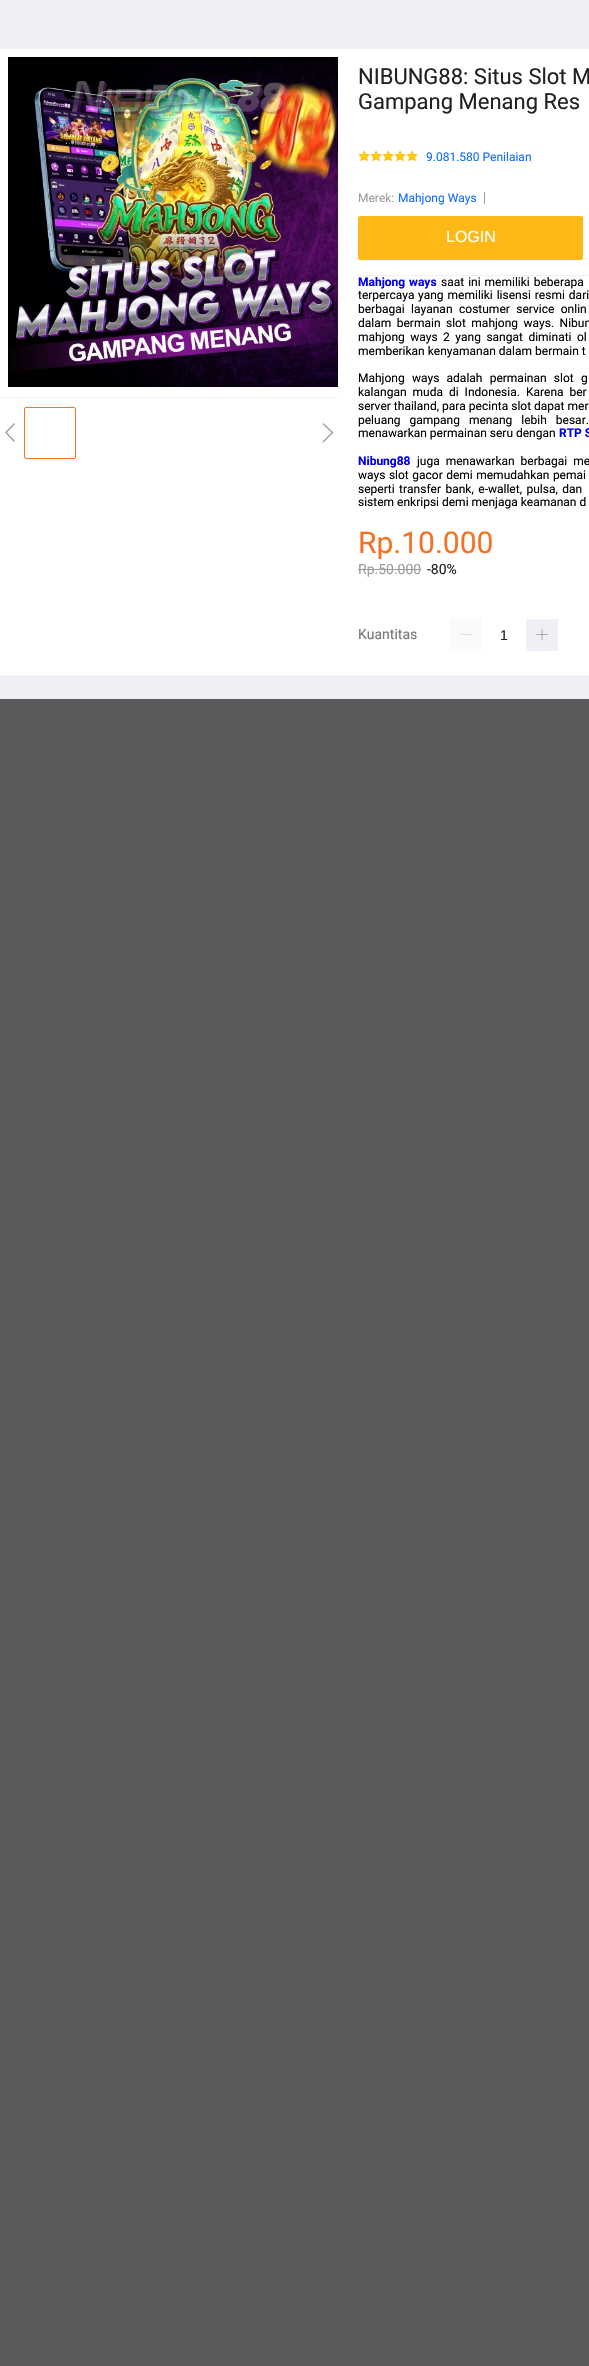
void draw(SkCanvas* canvas) {
  SkPaint paint;
  paint.setAntiAlias(true);
  auto face = [&](const char* family, int weight, float size, bool italic = false) {
    SkFontStyle style(weight, SkFontStyle::kNormal_Width,
      italic ? SkFontStyle::kItalic_Slant : SkFontStyle::kUpright_Slant);
    SkFont result(fontMgr->matchFamilyStyle(family, style), size);
    result.setSubpixel(true);
    return result;
  };
  auto writeSpaced = [&](const char* s, float x, float y, const SkFont& font, const SkPaint& ink, float letter, float word) {
    std::vector<SkGlyphID> glyphs(font.countText(s, strlen(s), SkTextEncoding::kUTF8));
    std::vector<float> xs(glyphs.size());
    font.textToGlyphs(s, strlen(s), SkTextEncoding::kUTF8, glyphs);
    font.getXPos(glyphs, xs, x);
    float extra = 0;
    for (size_t i = 0; i < glyphs.size(); i++) {
      xs[i] += extra;
      extra += letter + word * (glyphs[i] == font.unicharToGlyph(' '));
    }
    canvas->drawTextBlob(SkTextBlob::MakeFromPosHGlyphs(glyphs, xs, y, font), 0, 0, ink);
  };
  auto paste = [&](const char* path, float x, float y, float w, float h) {
    auto image = SkImages::DeferredFromEncodedData(SkData::MakeFromFileName(path));
    canvas->drawImageRect(image, SkRect::MakeXYWH(x, y, w, h), SkSamplingOptions());
  };
  auto shape = [&](const char* data, bool evenOdd = false) {
    SkPath result = *SkParsePath::FromSVGString(data);
    if (evenOdd) result.setFillType(SkPathFillType::kEvenOdd);
    return result;
  };
  canvas->clear(0xff5a5a5c);
  {
    const struct { float x, y, w, h; SkColor color; } items[] = {
      {0, 0, 589, 49, 0xffeff0f5},
      {0, 675, 589, 24, 0xffeff0f5},
      {0, 49, 589, 626, 0xffffffff},
      {0, 397, 338, 1, 0xffeff0f5},
    };
    for (auto [x, y, w, h, color] : items) {
      paint.setColor(color);
      canvas->drawRect(SkRect::MakeXYWH(x, y, w, h), paint);
    }
  }
  paste("img/1.png", 8, 57, 330, 330);
  paint.setColor(0xff9e9e9e);
  canvas->drawPath(shape("M15 441L7 432.5L15 424L14 423L5 432.5L14 442Z"), paint);
  paint.setStroke(true);
  paint.setStrokeWidth(1);
  paint.setColor(0xfff57224);
  canvas->drawRoundRect(SkRect::MakeXYWH(24.5f, 407.5f, 51, 51), 1.5f, 1.5f, paint);
  paint.setStroke(false);
  paint.setColor(0xff9e9e9e);
  canvas->drawPath(shape("M323.5 442.5L322.5 441.5L331.5 432.5L322.5 424L323.5 423L333.5 432.5Z"), paint);
  paste("img/2.png", 358, 150, 12, 12);
  paste("img/2.png", 370, 150, 12, 12);
  paste("img/2.png", 382, 150, 12, 12);
  paste("img/2.png", 394, 150, 12, 12);
  paste("img/2.png", 406, 150, 12, 12);
  paint.setColor(0xffeff0f5);
  canvas->drawRect(SkRect::MakeXYWH(358, 275, 231, 1), paint);
  paint.setColor(0xff9e9e9e);
  canvas->drawRect(SkRect::MakeXYWH(484, 192, 1, 12), paint);
  paint.setColor(0xffffb916);
  canvas->drawRoundRect(SkRect::MakeXYWH(358, 216, 225, 44), 2, 2, paint);
  paint.setColor(0xff9e9e9e);
  canvas->drawRect(SkRect::MakeXYWH(358, 569, 63, 1), paint);
  paint.setColor(0xfffafafa);
  canvas->drawRect(SkRect::MakeXYWH(450, 619, 32, 32), paint);
  paste("img/3.png", 460, 634, 12, 1);
  paint.setColor(0xffeff0f5);
  canvas->drawRect(SkRect::MakeXYWH(526, 619, 32, 32), paint);
  paste("img/4.png", 536, 628, 12, 13);
  auto f0 = face("Roboto", 400, 22);
  paint.setColor(0xff212121);
  canvas->drawString("NIBUNG88: Situs Slot M", 358, 84, f0, paint);
  canvas->drawString("Gampang Menang Res", 358, 109, f0, paint);
  auto f1 = face("Roboto", 400, 12);
  paint.setColor(0xff136cff);
  canvas->drawString("9.081.580 Penilaian", 426, 161, f1, paint);
  paint.setColor(0xff9e9e9e);
  canvas->drawString("Merek:", 358, 202, f1, paint);
  paint.setColor(0xff136cff);
  canvas->drawString("Mahjong Ways", 398, 202, f1, paint);
  auto f2 = face("Liberation Sans", 400, 16);
  paint.setColor(0xffffffff);
  canvas->drawString("LOGIN", 446, 242, f2, paint);
  auto f3 = face("Roboto", 700, 12);
  paint.setColor(0xff0000ee);
  writeSpaced("Mahjong ways", 358, 286, f3, paint, 0, 1);
  paint.setColor(0xff000000);
  writeSpaced("saat ini memiliki beberapa", 441, 286, f1, paint, 0, 1);
  canvas->drawString("terpercaya", 358, 299, f1, paint);
  writeSpaced("yang memiliki lisensi resmi dari", 418, 299, f1, paint, 0, 1);
  writeSpaced("berbagai layanan costumer service onlin", 358, 313, f1, paint, 0, 3.5f);
  writeSpaced("dalam bermain slot mahjong ways. Nibun", 358, 327, f1, paint, 0, 2.5f);
  writeSpaced("mahjong ways 2 yang sangat diminati ol", 358, 341, f1, paint, 0, 2.5f);
  canvas->drawString("memberikan kenyamanan dalam bermain t", 358, 355, f1, paint);
  writeSpaced("Mahjong ways adalah permainan slot g", 358, 382, f1, paint, 0, 4.25f);
  writeSpaced("kalangan muda di Indonesia. Karena ber", 358, 396, f1, paint, 0, 3);
  canvas->drawString("server thailand, para pecinta slot dapat mer", 358, 410, f1, paint);
  writeSpaced("peluang gampang menang lebih besar.", 358, 424, f1, paint, 0, 6);
  canvas->drawString("menawarkan permainan seru dengan", 358, 437, f1, paint);
  paint.setColor(0xff0000ee);
  canvas->drawString("RTP S", 559, 437, f3, paint);
  canvas->drawString("Nibung88", 358, 465, f3, paint);
  paint.setColor(0xff000000);
  writeSpaced("juga menawarkan berbagai me", 417, 465, f1, paint, 0, 3);
  writeSpaced("ways slot gacor demi memudahkan pemai", 358, 479, f1, paint, 0, 0.5f);
  writeSpaced("seperti transfer bank, e-wallet, pulsa, dan", 358, 493, f1, paint, 0, 1.5f);
  canvas->drawString("sistem enkripsi demi menjaga keamanan d", 358, 506, f1, paint);
  auto f4 = face("Roboto", 400, 30);
  paint.setColor(0xfff57224);
  canvas->drawString("Rp.10.000", 358, 553, f4, paint);
  auto f5 = face("Roboto", 400, 14);
  paint.setColor(0xff9e9e9e);
  canvas->drawString("Rp.50.000", 358, 574, f5, paint);
  paint.setColor(0xff212121);
  canvas->drawString("-80%", 427, 574, f5, paint);
  paint.setColor(0xff757575);
  canvas->drawString("Kuantitas", 358, 639, f5, paint);
  auto f6 = face("Liberation Sans", 400, 14);
  paint.setColor(0xff212121);
  canvas->drawString("1", 500, 640, f6, paint);
}
